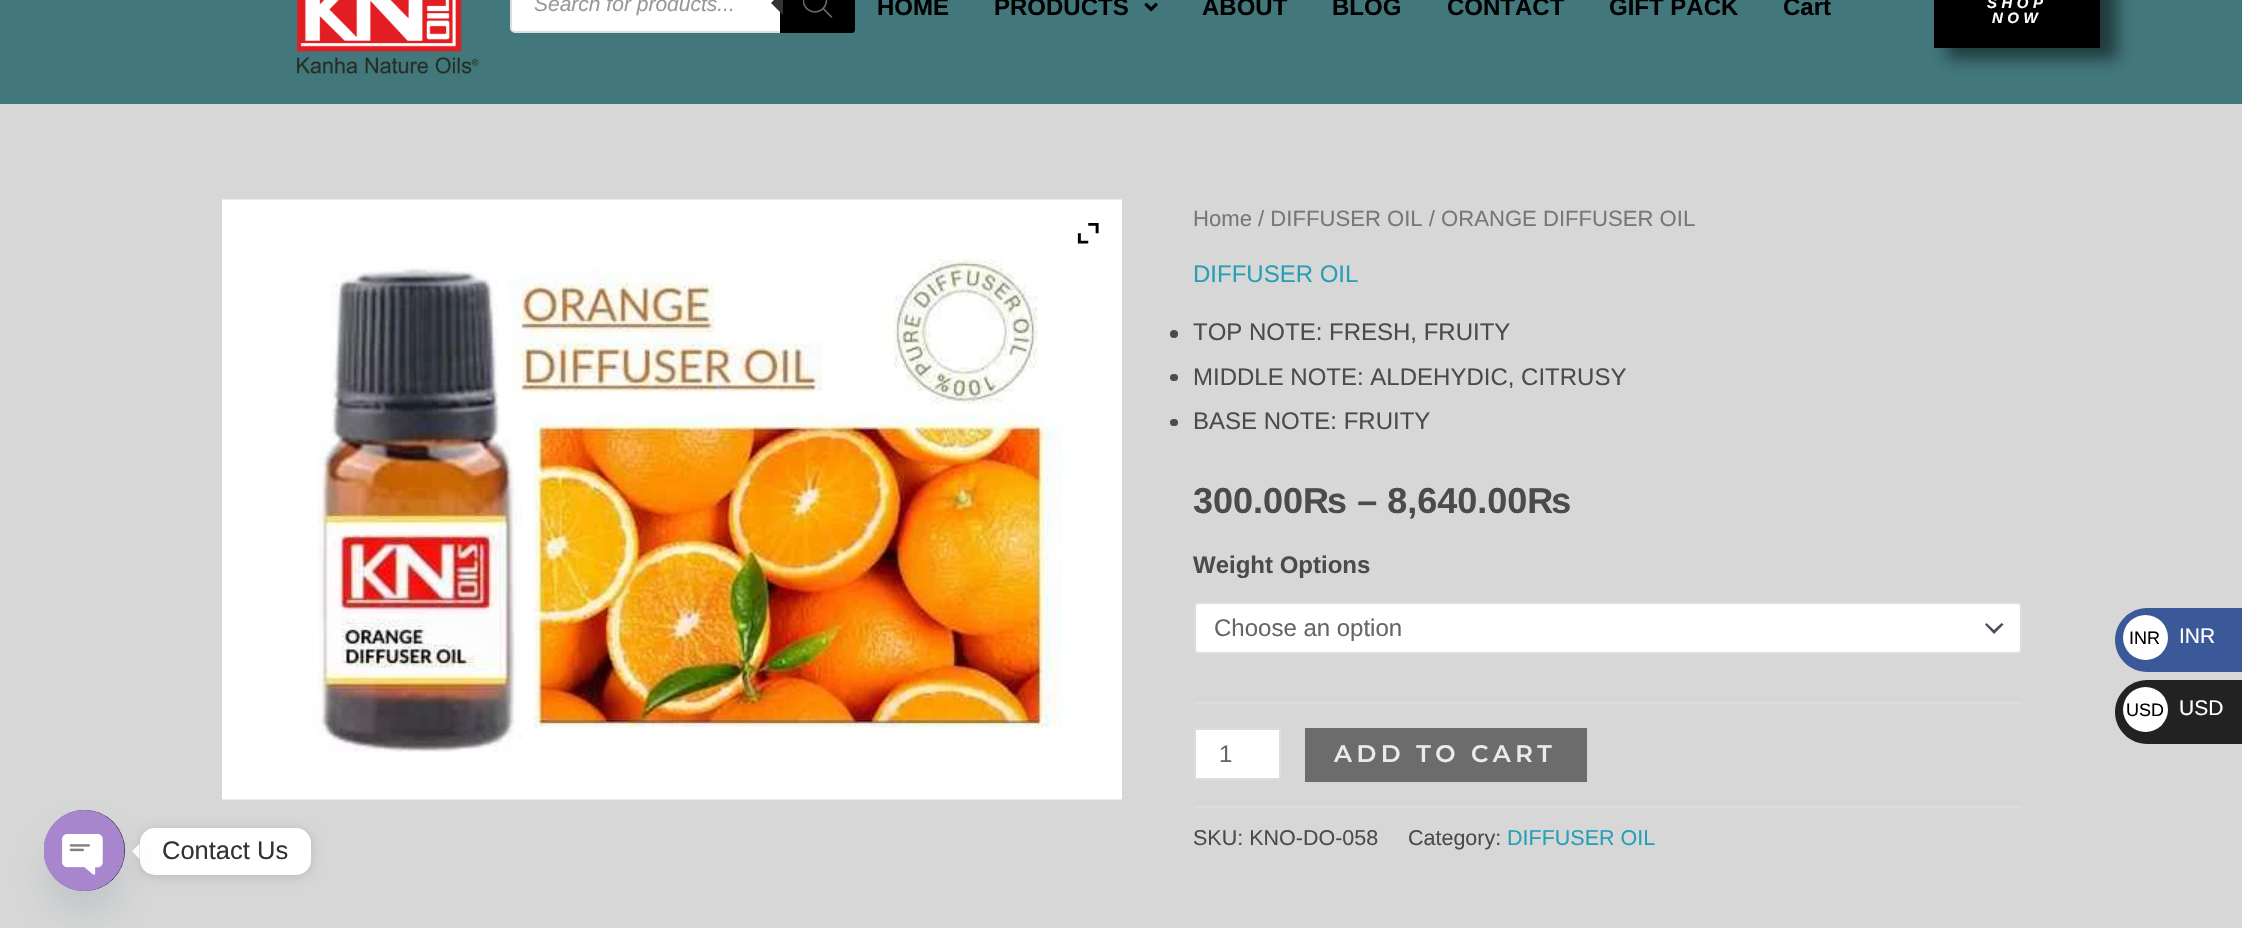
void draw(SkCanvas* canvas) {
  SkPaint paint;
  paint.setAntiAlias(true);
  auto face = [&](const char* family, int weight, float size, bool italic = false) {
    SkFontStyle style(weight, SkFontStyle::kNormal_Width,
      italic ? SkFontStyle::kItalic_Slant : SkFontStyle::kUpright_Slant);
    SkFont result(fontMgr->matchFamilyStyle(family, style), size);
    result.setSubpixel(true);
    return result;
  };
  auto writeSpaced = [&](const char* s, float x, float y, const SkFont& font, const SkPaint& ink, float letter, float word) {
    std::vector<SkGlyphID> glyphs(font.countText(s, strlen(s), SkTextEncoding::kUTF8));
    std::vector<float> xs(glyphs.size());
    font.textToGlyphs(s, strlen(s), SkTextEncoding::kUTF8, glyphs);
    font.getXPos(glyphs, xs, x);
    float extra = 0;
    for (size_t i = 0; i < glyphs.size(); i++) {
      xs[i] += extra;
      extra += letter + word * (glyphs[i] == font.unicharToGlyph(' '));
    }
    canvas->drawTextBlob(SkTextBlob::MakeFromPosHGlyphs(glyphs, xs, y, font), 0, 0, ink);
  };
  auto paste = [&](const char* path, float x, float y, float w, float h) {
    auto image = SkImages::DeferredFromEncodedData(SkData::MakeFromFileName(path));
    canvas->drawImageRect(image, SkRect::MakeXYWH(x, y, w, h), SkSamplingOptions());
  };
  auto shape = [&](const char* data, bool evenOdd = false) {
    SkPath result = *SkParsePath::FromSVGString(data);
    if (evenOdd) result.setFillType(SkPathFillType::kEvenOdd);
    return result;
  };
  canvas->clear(0xffd7d7d7);
  paint.setColor(0xff42777c);
  canvas->drawRect(SkRect::MakeXYWH(0, 0, 2242, 104), paint);
  paste("img/1.png", 297, 0, 182, 74);
  paint.setColor(0xffffffff);
  canvas->drawRoundRect(SkRect::MakeXYWH(511, -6, 343, 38), 4, 4, paint);
  paint.setStroke(true);
  paint.setStrokeWidth(2);
  paint.setColor(0xffdddddd);
  canvas->drawRoundRect(SkRect::MakeXYWH(511, -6, 343, 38), 4, 4, paint);
  paint.setStroke(false);
  paint.setColor(0xff000000);
  canvas->drawPath(shape("M780-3H852C853.5-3 855-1.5 855 0V30C855 31.5 853.5 33 852 33H780Z"), paint);
  paint.setColor(0xff333333);
  canvas->drawPath(shape("M783-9V15L771 3Z"), paint);
  paste("img/2.png", 803, 0, 30, 18);
  paste("img/3.png", 1144, 2, 14, 10);
  paint.setColor(0x80000000);
  paint.setMaskFilter(SkMaskFilter::MakeBlur(kNormal_SkBlurStyle, 7.5f));
  canvas->drawRect(SkRect::MakeXYWH(1947, -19, 170, 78), paint);
  paint.setMaskFilter(nullptr);
  paint.setColor(0xff000000);
  canvas->drawRect(SkRect::MakeXYWH(1934, 0, 166, 48), paint);
  paste("img/4.png", 222, 199, 900, 601);
  paste("img/5.png", 1077, 223, 22, 21);
  paint.setColor(0xff4b4b4b);
  canvas->drawCircle(1174, 334, 4, paint);
  canvas->drawRoundRect(SkRect::MakeXYWH(1170, 374, 8, 7), 3.5f, 3.5f, paint);
  canvas->drawRoundRect(SkRect::MakeXYWH(1170, 419, 8, 7), 3.5f, 3.5f, paint);
  paint.setColor(0xffdddddd);
  canvas->drawRect(SkRect::MakeXYWH(1194, 702, 828, 2), paint);
  paint.setColor(0xffffffff);
  canvas->drawRoundRect(SkRect::MakeXYWH(1194, 602, 828, 52), 5, 5, paint);
  paint.setColor(0xff4b4f58);
  canvas->drawPath(shape("M1985 624.5L1994 634L2003.5 624.5L2001.5 623L1994 630L1986.5 623Z"), paint);
  paint.setStroke(true);
  paint.setColor(0xffdddddd);
  canvas->drawRoundRect(SkRect::MakeXYWH(1195, 603, 826, 50), 4, 4, paint);
  paint.setStroke(false);
  paint.setColor(0xffffffff);
  canvas->drawRect(SkRect::MakeXYWH(1195, 729, 85, 50), paint);
  paint.setStroke(true);
  paint.setColor(0xffdddddd);
  canvas->drawRect(SkRect::MakeXYWH(1195, 729, 85, 50), paint);
  paint.setStroke(false);
  paint.setColor(0xff6c6c6c);
  canvas->drawRect(SkRect::MakeXYWH(1305, 728, 282, 54), paint);
  paint.setColor(0xffdddddd);
  canvas->drawRect(SkRect::MakeXYWH(1194, 806, 828, 2), paint);
  paint.setColor(0xff3b5998);
  canvas->drawPath(shape("M2147 608H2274V672H2147C2129.5 672 2115 657.5 2115 640C2115 622.5 2129.5 608 2147 608Z"), paint);
  paint.setColor(0xffffffff);
  canvas->drawCircle(2145.5f, 637.5f, 22.5f, paint);
  paint.setColor(0xff222222);
  canvas->drawPath(shape("M2147 680H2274V744H2147C2129.5 744 2115 729.5 2115 712C2115 694.5 2129.5 680 2147 680Z"), paint);
  paint.setColor(0xffffffff);
  canvas->drawCircle(2145.5f, 709.5f, 22.5f, paint);
  paint.setColor(0x26000000);
  paint.setMaskFilter(SkMaskFilter::MakeBlur(kNormal_SkBlurStyle, 6));
  canvas->drawRoundRect(SkRect::MakeXYWH(140, 830, 171, 46), 15, 15, paint);
  paint.setMaskFilter(nullptr);
  paint.setColor(0xffffffff);
  canvas->drawRoundRect(SkRect::MakeXYWH(140, 828, 171, 47), 15, 15, paint);
  canvas->drawPath(shape("M139.5 844V859L132 851Z"), paint);
  paint.setColor(0x2949687e);
  paint.setMaskFilter(SkMaskFilter::MakeBlur(kNormal_SkBlurStyle, 18));
  canvas->drawRoundRect(SkRect::MakeXYWH(44, 834, 81, 81), 40.5f, 40.5f, paint);
  paint.setMaskFilter(nullptr);
  paint.setColor(0xff000000);
  canvas->drawCircle(84.5f, 850.5f, 40.5f, paint);
  paste("img/6.png", 44, 810, 81, 81);
  auto f0 = face("Liberation Sans", 400, 21, true);
  paint.setColor(0xff999999);
  canvas->drawString("Search for products...", 534, 11, f0, paint);
  auto f1 = face("Liberation Sans", 700, 24);
  paint.setColor(0xff000000);
  {
    const struct { const char* s; float x, y; } items[] = {
      {"HOME", 877, 15},
      {"PRODUCTS", 994, 15},
      {"ABOUT", 1202, 15},
      {"BLOG", 1332, 15},
      {"CONTACT", 1447, 15},
      {"GIFT PACK", 1609, 15},
      {"Cart", 1783, 15},
    };
    for (auto [s, x, y] : items) {
      canvas->drawString(s, x, y, f1, paint);
    }
  }
  auto f2 = face("Liberation Sans", 700, 15, true);
  paint.setColor(0xffffffff);
  writeSpaced("SHOP", 1987, 8, f2, paint, 4.5f, 0);
  writeSpaced("NOW", 1992, 23, f2, paint, 4.5f, 0);
  auto f3 = face("Liberation Sans", 400, 22.1f);
  paint.setColor(0xff777777);
  canvas->drawString("Home / DIFFUSER OIL / ORANGE DIFFUSER OIL", 1193, 226, f3, paint);
  auto f4 = face("Liberation Sans", 400, 24);
  paint.setColor(0xff269fb7);
  canvas->drawString("DIFFUSER OIL", 1193, 282, f4, paint);
  paint.setColor(0xff4b4b4b);
  {
    const struct { const char* s; float x, y; } items[] = {
      {"TOP NOTE: FRESH, FRUITY", 1193, 340},
      {"MIDDLE NOTE: ALDEHYDIC, CITRUSY", 1193, 385},
      {"BASE NOTE: FRUITY", 1193, 429},
    };
    for (auto [s, x, y] : items) {
      canvas->drawString(s, x, y, f4, paint);
    }
  }
  auto f5 = face("Liberation Sans", 700, 36);
  canvas->drawString("300.00₨ – 8,640.00₨", 1193, 513, f5, paint);
  canvas->drawString("Weight Options", 1193, 573, f1, paint);
  paint.setColor(0xff666666);
  canvas->drawString("Choose an option", 1214, 636, f4, paint);
  canvas->drawString("1", 1219, 762, f4, paint);
  auto f6 = face("Montserrat", 600, 24);
  paint.setColor(0xffebebeb);
  writeSpaced("ADD TO CART", 1334, 762, f6, paint, 4.5f, 0);
  auto f7 = face("Liberation Sans", 400, 21.5f);
  paint.setColor(0xff4b4b4b);
  canvas->drawString("SKU: KNO-DO-058", 1193, 845, f7, paint);
  canvas->drawString("Category:", 1408, 845, f7, paint);
  paint.setColor(0xff269fb7);
  canvas->drawString("DIFFUSER OIL", 1507, 845, f7, paint);
  auto f8 = face("Liberation Sans", 400, 18);
  paint.setColor(0xff000000);
  canvas->drawString("INR", 2129, 644, f8, paint);
  auto f9 = face("Liberation Sans", 400, 21);
  paint.setColor(0xffffffff);
  canvas->drawString("INR", 2179, 643, f9, paint);
  paint.setColor(0xff000000);
  canvas->drawString("USD", 2126, 716, f8, paint);
  paint.setColor(0xffffffff);
  canvas->drawString("USD", 2179, 715, f9, paint);
  auto f10 = face("Liberation Sans", 400, 25.5f);
  paint.setColor(0xff333333);
  canvas->drawString("Contact Us", 162, 859, f10, paint);
}
